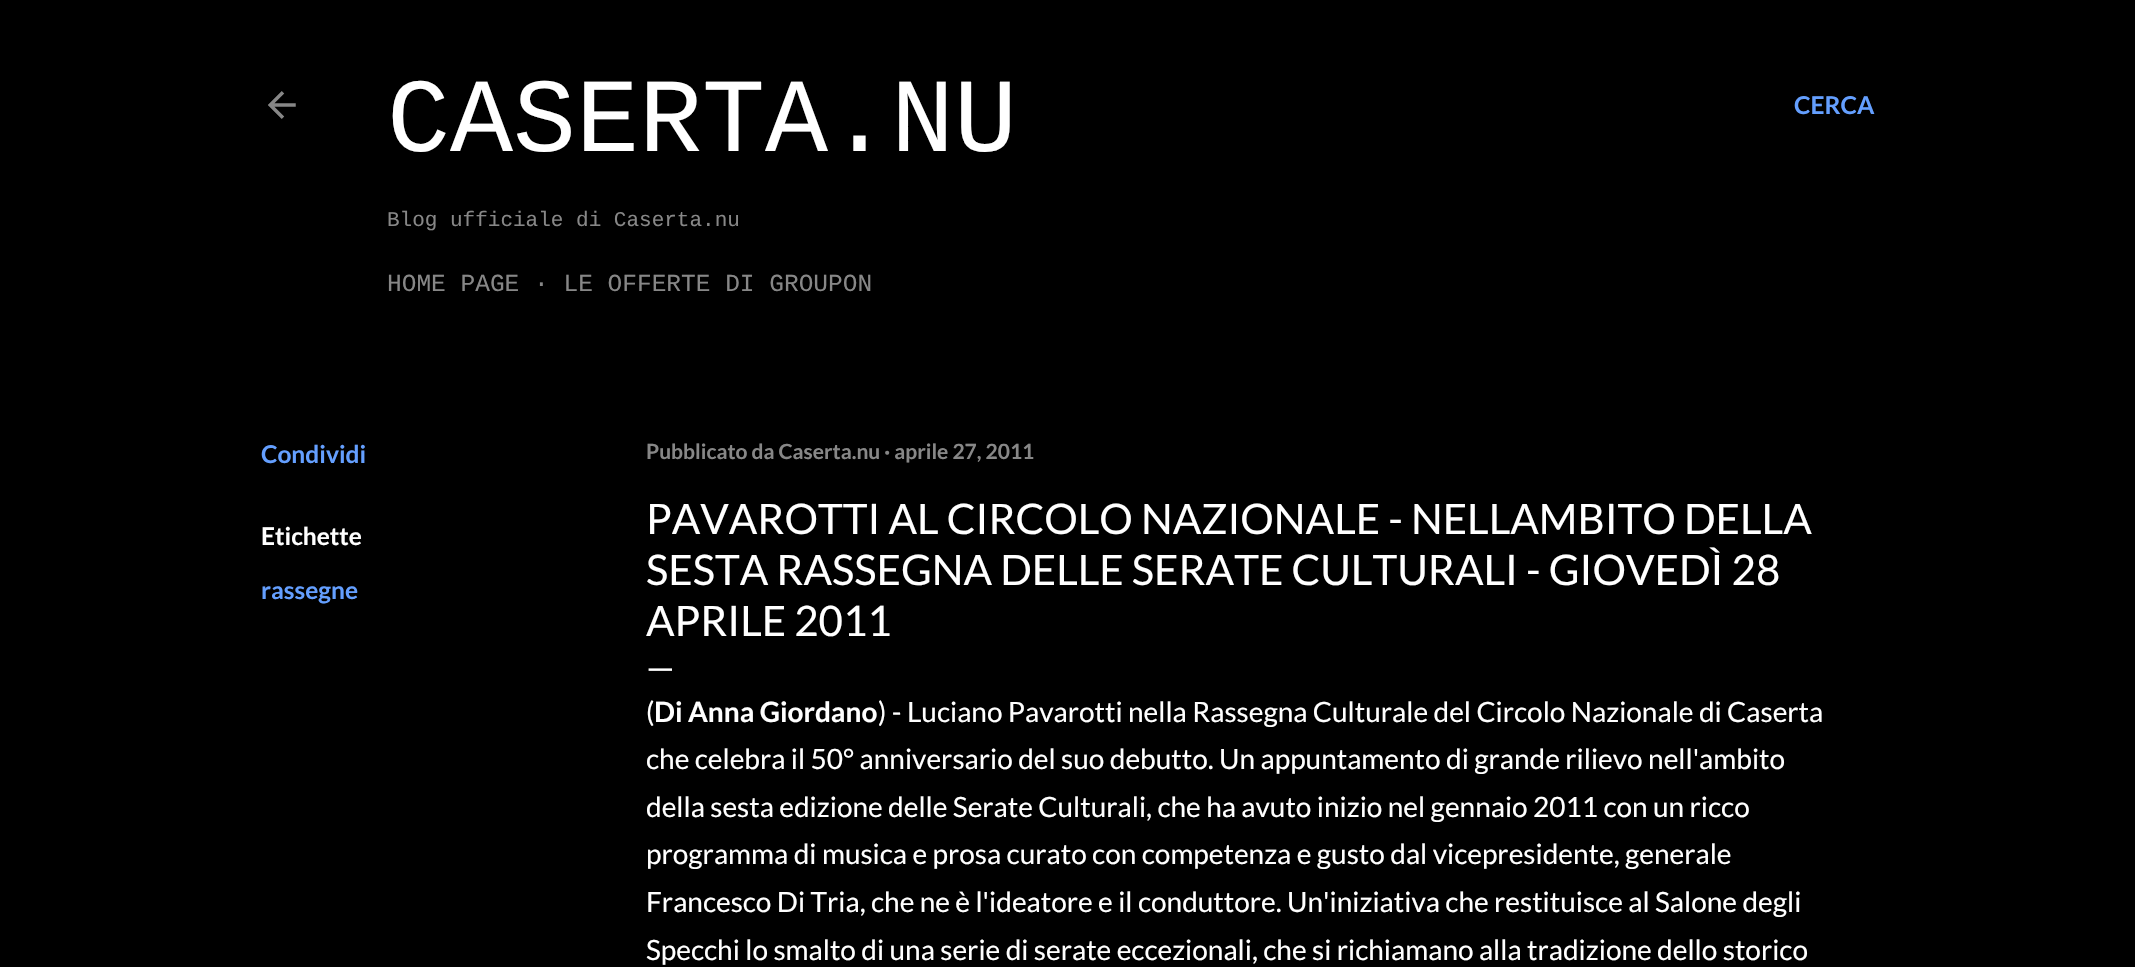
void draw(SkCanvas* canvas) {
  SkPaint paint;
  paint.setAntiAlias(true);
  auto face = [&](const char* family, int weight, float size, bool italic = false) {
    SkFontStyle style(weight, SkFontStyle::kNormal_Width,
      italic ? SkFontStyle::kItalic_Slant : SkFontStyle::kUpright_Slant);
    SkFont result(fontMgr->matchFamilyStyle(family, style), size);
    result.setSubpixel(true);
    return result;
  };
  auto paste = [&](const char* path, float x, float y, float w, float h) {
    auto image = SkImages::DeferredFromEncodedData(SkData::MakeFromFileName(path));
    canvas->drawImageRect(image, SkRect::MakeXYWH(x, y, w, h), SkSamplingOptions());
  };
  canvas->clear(0xff000000);
  paste("img/1.png", 268, 91, 28, 28);
  auto f0 = face("Liberation Mono", 400, 105);
  paint.setColor(0xffffffff);
  canvas->drawString("CASERTA.NU", 387, 151, f0, paint);
  auto f1 = face("Liberation Mono", 400, 21);
  paint.setColor(0xff878787);
  canvas->drawString("Blog ufficiale di Caserta.nu", 387, 226, f1, paint);
  auto f2 = face("Liberation Mono", 400, 24.5f);
  canvas->drawString("HOME PAGE · LE OFFERTE DI GROUPON", 387, 291, f2, paint);
  auto f3 = face("Lato", 700, 24.5f);
  paint.setColor(0xff649fff);
  canvas->drawString("CERCA", 1794, 114, f3, paint);
  canvas->drawString("Condividi", 261, 463, f3, paint);
  paint.setColor(0xffffffff);
  canvas->drawString("Etichette", 261, 545, f3, paint);
  paint.setColor(0xff649fff);
  canvas->drawString("rassegne", 261, 599, f3, paint);
  auto f4 = face("Lato", 700, 21);
  paint.setColor(0xff878787);
  canvas->drawString("Pubblicato da Caserta.nu · aprile 27, 2011", 646, 459, f4, paint);
  auto f5 = face("Lato", 400, 42);
  paint.setColor(0xffffffff);
  {
    const struct { const char* s; float x, y; } items[] = {
      {"PAVAROTTI AL CIRCOLO NAZIONALE - NELLAMBITO DELLA", 646, 534},
      {"SESTA RASSEGNA DELLE SERATE CULTURALI - GIOVEDÌ 28", 646, 585},
      {"APRILE 2011", 646, 636},
    };
    for (auto [s, x, y] : items) {
      canvas->drawString(s, x, y, f5, paint);
    }
  }
  auto f6 = face("Lato", 400, 35);
  canvas->drawString("—", 646, 680, f6, paint);
  auto f7 = face("Lato", 400, 28);
  canvas->drawString("(", 646, 722, f7, paint);
  auto f8 = face("Lato", 700, 28);
  canvas->drawString("Di Anna Giordano", 654, 722, f8, paint);
  {
    const struct { const char* s; float x, y; } items[] = {
      {") - Luciano Pavarotti nella Rassegna Culturale del Circolo Nazionale di Caserta", 878, 722},
      {"che celebra il 50° anniversario del suo debutto. Un appuntamento di grande rilievo nell'ambito", 646, 769},
      {"della sesta edizione delle Serate Culturali, che ha avuto inizio nel gennaio 2011 con un ricco", 646, 817},
      {"programma di musica e prosa curato con competenza e gusto dal vicepresidente, generale", 646, 864},
      {"Francesco Di Tria, che ne è l'ideatore e il conduttore. Un'iniziativa che restituisce al Salone degli", 646, 912},
      {"Specchi lo smalto di una serie di serate eccezionali, che si richiamano alla tradizione dello storico", 646, 960},
    };
    for (auto [s, x, y] : items) {
      canvas->drawString(s, x, y, f7, paint);
    }
  }
}
